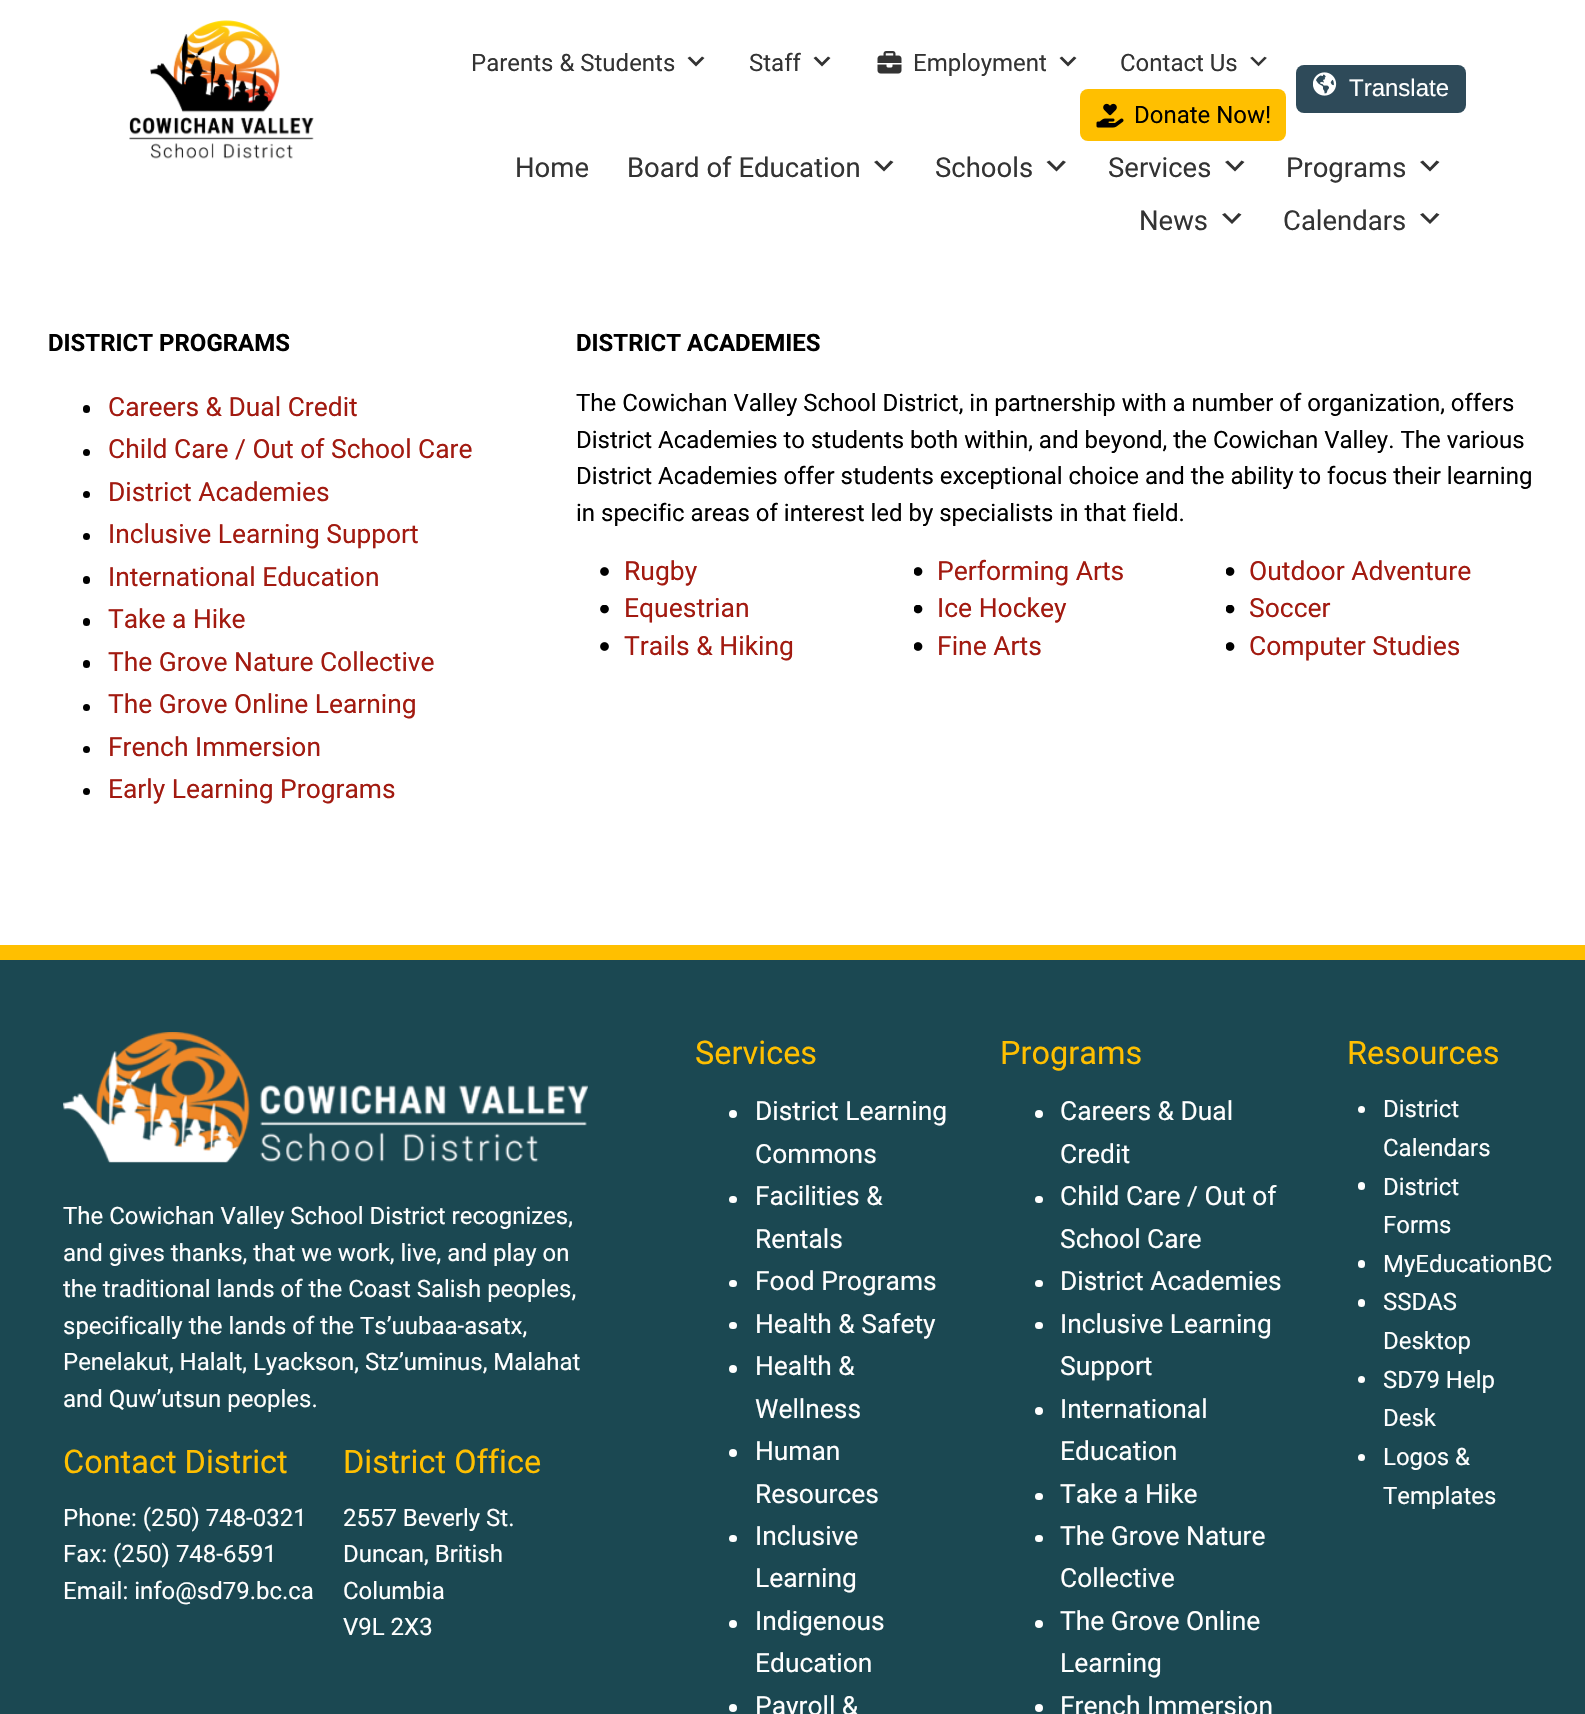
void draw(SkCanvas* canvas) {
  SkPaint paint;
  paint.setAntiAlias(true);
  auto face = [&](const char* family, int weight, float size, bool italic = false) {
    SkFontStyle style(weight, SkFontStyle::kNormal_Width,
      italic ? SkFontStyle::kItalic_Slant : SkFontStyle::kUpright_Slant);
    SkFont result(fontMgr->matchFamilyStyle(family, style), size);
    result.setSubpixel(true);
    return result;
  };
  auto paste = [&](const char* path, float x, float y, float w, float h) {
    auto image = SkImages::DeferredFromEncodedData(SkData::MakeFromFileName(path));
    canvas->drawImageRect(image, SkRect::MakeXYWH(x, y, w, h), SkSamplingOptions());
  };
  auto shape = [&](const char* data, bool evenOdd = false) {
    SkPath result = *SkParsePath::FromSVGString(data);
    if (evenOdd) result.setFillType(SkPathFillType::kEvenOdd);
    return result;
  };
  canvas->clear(0xffffffff);
  paste("img/1.png", 129, 20, 185, 139);
  paint.setColor(0xff333333);
  canvas->drawPath(shape("M690 56.5L696 62.5L702 56.5L704.5 58L696 66.5L687.5 58Z"), paint);
  canvas->drawPath(shape("M816 56.5L822 62.5L828 56.5L830.5 58L822 66.5L813.5 58Z"), paint);
  paste("img/2.png", 877, 51, 25, 23);
  canvas->drawPath(shape("M1062 56.5L1068 62.5L1074 56.5L1076.5 58L1068 66.5L1059.5 58Z"), paint);
  paste("img/3.png", 1250, 56, 17, 11);
  paint.setColor(0xffffbf00);
  canvas->drawRoundRect(SkRect::MakeXYWH(1080, 89, 206, 52), 8, 8, paint);
  paste("img/4.png", 1096, 103, 28, 25);
  paint.setColor(0xff2e4a59);
  canvas->drawRoundRect(SkRect::MakeXYWH(1296, 65, 170, 48), 8, 8, paint);
  paste("img/5.png", 1313, 72, 24, 24);
  paint.setColor(0xff333333);
  canvas->drawPath(shape("M877 160.5L884 167.5L890.5 160.5L893.5 162L884 171.5L874 162Z"), paint);
  canvas->drawPath(shape("M1049.5 160.5L1056.5 167.5L1063 160.5L1066 162L1056.5 171.5L1046.5 162Z"), paint);
  canvas->drawPath(shape("M1228 160.5L1235 167.5L1241.5 160.5L1244.5 162L1235 171.5L1225 162Z"), paint);
  canvas->drawPath(shape("M1423 160.5L1430 167.5L1436.5 160.5L1439.5 162L1430 171.5L1420 162Z"), paint);
  canvas->drawPath(shape("M1225 213L1232 220L1238.5 213L1241.5 214.5L1232 224L1222 214.5Z"), paint);
  canvas->drawPath(shape("M1423 213L1430 220L1436.5 213L1439.5 214.5L1430 224L1420 214.5Z"), paint);
  paint.setColor(0xff000000);
  canvas->drawRoundRect(SkRect::MakeXYWH(83, 405, 7, 8), 3.5f, 3.5f, paint);
  canvas->drawCircle(86.5f, 452.5f, 3.5f, paint);
  canvas->drawCircle(86.5f, 494.5f, 3.5f, paint);
  canvas->drawCircle(86.5f, 536.5f, 3.5f, paint);
  canvas->drawRoundRect(SkRect::MakeXYWH(83, 576, 7, 8), 3.5f, 3.5f, paint);
  canvas->drawRoundRect(SkRect::MakeXYWH(83, 618, 7, 8), 3.5f, 3.5f, paint);
  canvas->drawRoundRect(SkRect::MakeXYWH(83, 660, 7, 8), 3.5f, 3.5f, paint);
  canvas->drawCircle(86.5f, 707.5f, 3.5f, paint);
  canvas->drawCircle(86.5f, 749.5f, 3.5f, paint);
  canvas->drawCircle(86.5f, 791.5f, 3.5f, paint);
  paste("img/6.png", 600, 567, 9, 9);
  paste("img/7.png", 914, 567, 9, 9);
  paste("img/7.png", 1226, 567, 9, 9);
  paste("img/8.png", 600, 605, 9, 9);
  paste("img/9.png", 914, 605, 9, 9);
  paste("img/9.png", 1226, 605, 9, 9);
  paste("img/6.png", 600, 642, 9, 9);
  paste("img/7.png", 914, 642, 9, 9);
  paste("img/7.png", 1226, 642, 9, 9);
  paint.setColor(0xff1b4852);
  canvas->drawRect(SkRect::MakeXYWH(0, 960, 1585, 754), paint);
  paint.setColor(0xffffbf00);
  canvas->drawRect(SkRect::MakeXYWH(0, 945, 1585, 15), paint);
  paste("img/10.png", 63, 1032, 525, 131);
  paint.setColor(0xffffffff);
  canvas->drawCircle(733, 1114, 4, paint);
  canvas->drawRoundRect(SkRect::MakeXYWH(729, 1196, 8, 7), 3.5f, 3.5f, paint);
  canvas->drawRoundRect(SkRect::MakeXYWH(729, 1280, 8, 7), 3.5f, 3.5f, paint);
  canvas->drawRoundRect(SkRect::MakeXYWH(729, 1322, 8, 7), 3.5f, 3.5f, paint);
  canvas->drawCircle(733, 1369, 4, paint);
  canvas->drawCircle(733, 1453, 4, paint);
  canvas->drawRoundRect(SkRect::MakeXYWH(729, 1535, 8, 7), 3.5f, 3.5f, paint);
  canvas->drawCircle(733, 1624, 4, paint);
  canvas->drawCircle(733, 1708, 4, paint);
  canvas->drawCircle(1039, 1114, 4, paint);
  canvas->drawRoundRect(SkRect::MakeXYWH(1035, 1196, 8, 7), 3.5f, 3.5f, paint);
  canvas->drawRoundRect(SkRect::MakeXYWH(1035, 1280, 8, 7), 3.5f, 3.5f, paint);
  canvas->drawRoundRect(SkRect::MakeXYWH(1035, 1322, 8, 7), 3.5f, 3.5f, paint);
  canvas->drawCircle(1039, 1411, 4, paint);
  canvas->drawRoundRect(SkRect::MakeXYWH(1035, 1493, 8, 7), 3.5f, 3.5f, paint);
  canvas->drawRoundRect(SkRect::MakeXYWH(1035, 1535, 8, 7), 3.5f, 3.5f, paint);
  canvas->drawCircle(1039, 1624, 4, paint);
  canvas->drawCircle(1039, 1708, 4, paint);
  canvas->drawCircle(1361.5f, 1109.5f, 3.5f, paint);
  canvas->drawRoundRect(SkRect::MakeXYWH(1358, 1182, 7, 8), 3.5f, 3.5f, paint);
  canvas->drawRoundRect(SkRect::MakeXYWH(1358, 1260, 7, 8), 3.5f, 3.5f, paint);
  canvas->drawRoundRect(SkRect::MakeXYWH(1358, 1299, 7, 8), 3.5f, 3.5f, paint);
  canvas->drawCircle(1361.5f, 1379.5f, 3.5f, paint);
  canvas->drawCircle(1361.5f, 1457.5f, 3.5f, paint);
  auto f0 = face("Roboto", 400, 24);
  paint.setColor(0xff333333);
  {
    const struct { const char* s; float x, y; } items[] = {
      {"Parents & Students", 471, 71},
      {"Staff", 749, 71},
      {"Employment", 913, 71},
      {"Contact Us", 1120, 71},
    };
    for (auto [s, x, y] : items) {
      canvas->drawString(s, x, y, f0, paint);
    }
  }
  paint.setColor(0xff000000);
  canvas->drawString("Donate Now!", 1134, 123, f0, paint);
  auto f1 = face("Liberation Sans", 400, 24);
  paint.setColor(0xffffffff);
  canvas->drawString("Translate", 1349, 96, f1, paint);
  auto f2 = face("Roboto", 400, 27.5f);
  paint.setColor(0xff333333);
  {
    const struct { const char* s; float x, y; } items[] = {
      {"Home", 515, 177},
      {"Board of Education", 627, 177},
      {"Schools", 935, 177},
      {"Services", 1108, 177},
      {"Programs", 1286, 177},
      {"News", 1139, 230},
      {"Calendars", 1283, 230},
    };
    for (auto [s, x, y] : items) {
      canvas->drawString(s, x, y, f2, paint);
    }
  }
  auto f3 = face("Roboto", 700, 24);
  paint.setColor(0xff000000);
  canvas->drawString("DISTRICT PROGRAMS", 48, 351, f3, paint);
  auto f4 = face("Roboto", 400, 26.4f);
  paint.setColor(0xffa21a10);
  {
    const struct { const char* s; float x, y; } items[] = {
      {"Careers & Dual Credit", 108, 416},
      {"Child Care / Out of School Care", 108, 458},
      {"District Academies", 108, 501},
      {"Inclusive Learning Support", 108, 543},
      {"International Education", 108, 586},
      {"Take a Hike", 108, 628},
      {"The Grove Nature Collective", 108, 671},
      {"The Grove Online Learning", 108, 713},
      {"French Immersion", 108, 756},
      {"Early Learning Programs", 108, 798},
    };
    for (auto [s, x, y] : items) {
      canvas->drawString(s, x, y, f4, paint);
    }
  }
  paint.setColor(0xff000000);
  canvas->drawString("DISTRICT ACADEMIES", 576, 351, f3, paint);
  {
    const struct { const char* s; float x, y; } items[] = {
      {"The Cowichan Valley School District, in partnership with a number of organization, offers", 576, 411},
      {"District Academies to students both within, and beyond, the Cowichan Valley. The various", 576, 448},
      {"District Academies offer students exceptional choice and the ability to focus their learning", 576, 484},
      {"in specific areas of interest led by specialists in that field.", 576, 521},
    };
    for (auto [s, x, y] : items) {
      canvas->drawString(s, x, y, f0, paint);
    }
  }
  auto f5 = face("Roboto", 400, 26.5f);
  paint.setColor(0xffa21a10);
  {
    const struct { const char* s; float x, y; } items[] = {
      {"Rugby", 624, 580},
      {"Performing Arts", 937, 580},
      {"Outdoor Adventure", 1249, 580},
      {"Equestrian", 624, 617},
      {"Ice Hockey", 937, 617},
      {"Soccer", 1249, 617},
      {"Trails & Hiking", 624, 655},
      {"Fine Arts", 937, 655},
      {"Computer Studies", 1249, 655},
    };
    for (auto [s, x, y] : items) {
      canvas->drawString(s, x, y, f5, paint);
    }
  }
  paint.setColor(0xffffffff);
  {
    const struct { const char* s; float x, y; } items[] = {
      {"The Cowichan Valley School District recognizes,", 63, 1224},
      {"and gives thanks, that we work, live, and play on", 63, 1261},
      {"the traditional lands of the Coast Salish peoples,", 63, 1297},
      {"specifically the lands of the Ts’uubaa-asatx,", 63, 1334},
      {"Penelakut, Halalt, Lyackson, Stz’uminus, Malahat", 63, 1370},
      {"and Quw’utsun peoples.", 63, 1407},
    };
    for (auto [s, x, y] : items) {
      canvas->drawString(s, x, y, f0, paint);
    }
  }
  auto f6 = face("Roboto", 400, 32.5f);
  paint.setColor(0xffffbf00);
  canvas->drawString("Contact District", 63, 1473, f6, paint);
  paint.setColor(0xffffffff);
  {
    const struct { const char* s; float x, y; } items[] = {
      {"Phone: (250) 748-0321", 63, 1526},
      {"Fax: (250) 748-6591", 63, 1562},
      {"Email: info@sd79.bc.ca", 63, 1599},
    };
    for (auto [s, x, y] : items) {
      canvas->drawString(s, x, y, f0, paint);
    }
  }
  paint.setColor(0xffffbf00);
  canvas->drawString("District Office", 343, 1473, f6, paint);
  paint.setColor(0xffffffff);
  {
    const struct { const char* s; float x, y; } items[] = {
      {"2557 Beverly St.", 343, 1526},
      {"Duncan, British", 343, 1562},
      {"Columbia", 343, 1599},
      {"V9L 2X3", 343, 1635},
    };
    for (auto [s, x, y] : items) {
      canvas->drawString(s, x, y, f0, paint);
    }
  }
  paint.setColor(0xffffbf00);
  canvas->drawString("Services", 695, 1064, f6, paint);
  paint.setColor(0xffffffff);
  {
    const struct { const char* s; float x, y; } items[] = {
      {"District Learning", 755, 1120},
      {"Commons", 755, 1163},
      {"Facilities &", 755, 1205},
      {"Rentals", 755, 1248},
      {"Food Programs", 755, 1290},
      {"Health & Safety", 755, 1333},
      {"Health &", 755, 1375},
      {"Wellness", 755, 1418},
      {"Human", 755, 1460},
      {"Resources", 755, 1503},
      {"Inclusive", 755, 1545},
      {"Learning", 755, 1587},
      {"Indigenous", 755, 1630},
      {"Education", 755, 1672},
      {"Payroll &", 755, 1715},
    };
    for (auto [s, x, y] : items) {
      canvas->drawString(s, x, y, f4, paint);
    }
  }
  paint.setColor(0xffffbf00);
  canvas->drawString("Programs", 1000, 1064, f6, paint);
  paint.setColor(0xffffffff);
  {
    const struct { const char* s; float x, y; } items[] = {
      {"Careers & Dual", 1060, 1120},
      {"Credit", 1060, 1163},
      {"Child Care / Out of", 1060, 1205},
      {"School Care", 1060, 1248},
      {"District Academies", 1060, 1290},
      {"Inclusive Learning", 1060, 1333},
      {"Support", 1060, 1375},
      {"International", 1060, 1418},
      {"Education", 1060, 1460},
      {"Take a Hike", 1060, 1503},
      {"The Grove Nature", 1060, 1545},
      {"Collective", 1060, 1587},
      {"The Grove Online", 1060, 1630},
      {"Learning", 1060, 1672},
      {"French Immersion", 1060, 1715},
    };
    for (auto [s, x, y] : items) {
      canvas->drawString(s, x, y, f4, paint);
    }
  }
  paint.setColor(0xffffbf00);
  canvas->drawString("Resources", 1347, 1064, f6, paint);
  paint.setColor(0xffffffff);
  {
    const struct { const char* s; float x, y; } items[] = {
      {"District", 1383, 1117},
      {"Calendars", 1383, 1156},
      {"District", 1383, 1195},
      {"Forms", 1383, 1233},
      {"MyEducationBC", 1383, 1272},
      {"SSDAS", 1383, 1310},
      {"Desktop", 1383, 1349},
      {"SD79 Help", 1383, 1388},
      {"Desk", 1383, 1426},
      {"Logos &", 1383, 1465},
      {"Templates", 1383, 1504},
    };
    for (auto [s, x, y] : items) {
      canvas->drawString(s, x, y, f0, paint);
    }
  }
}
